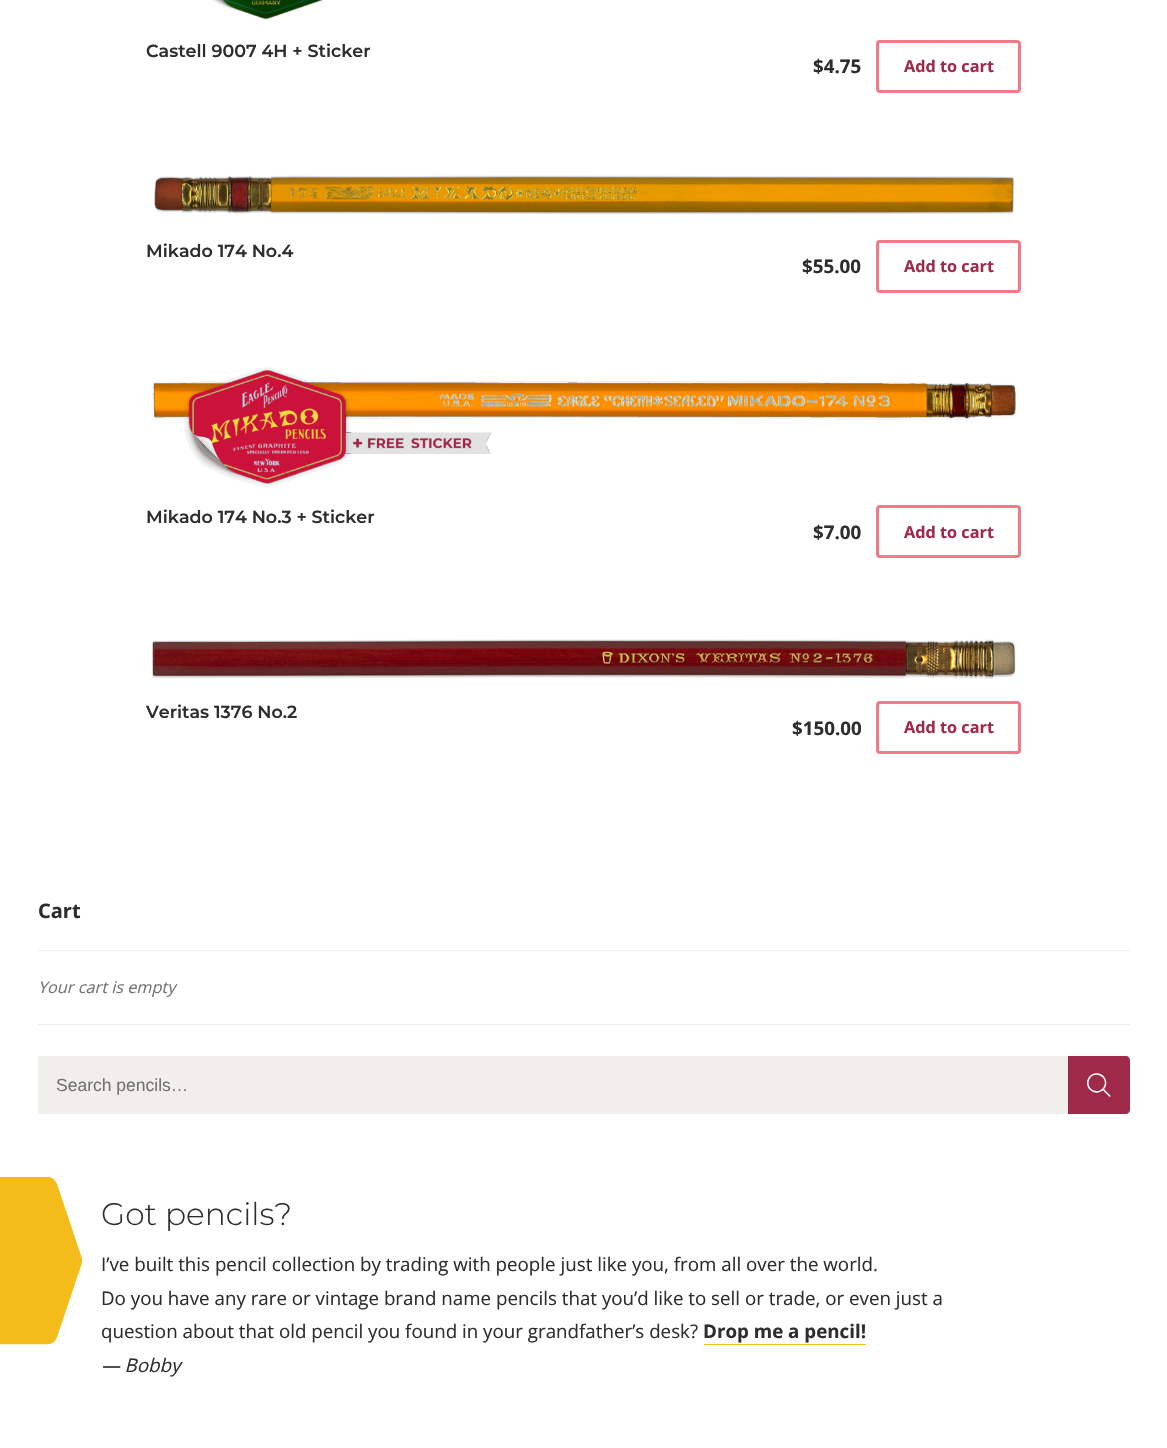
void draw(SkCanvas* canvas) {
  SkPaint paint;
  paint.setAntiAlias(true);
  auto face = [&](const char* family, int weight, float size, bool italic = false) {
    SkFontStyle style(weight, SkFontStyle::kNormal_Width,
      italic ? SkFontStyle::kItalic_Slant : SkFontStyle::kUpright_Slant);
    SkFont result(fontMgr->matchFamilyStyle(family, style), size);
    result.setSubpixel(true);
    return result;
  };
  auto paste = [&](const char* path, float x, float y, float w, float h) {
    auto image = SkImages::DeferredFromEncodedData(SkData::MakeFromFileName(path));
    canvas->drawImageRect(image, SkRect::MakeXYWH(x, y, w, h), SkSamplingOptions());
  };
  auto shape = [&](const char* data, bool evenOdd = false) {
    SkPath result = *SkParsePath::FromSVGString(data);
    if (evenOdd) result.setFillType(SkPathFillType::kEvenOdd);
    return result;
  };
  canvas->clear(0xffffffff);
  paste("img/1.png", 211, 0, 113, 20);
  paint.setStroke(true);
  paint.setStrokeWidth(3);
  paint.setColor(0xfff27988);
  canvas->drawRoundRect(SkRect::MakeXYWH(877.5f, 41.5f, 142, 50), 2.5f, 2.5f, paint);
  paste("img/2.png", 154, 175, 860, 40);
  canvas->drawRoundRect(SkRect::MakeXYWH(877.5f, 241.5f, 142, 50), 2.5f, 2.5f, paint);
  paste("img/3.png", 152, 367, 864, 120);
  canvas->drawRoundRect(SkRect::MakeXYWH(877.5f, 506.5f, 142, 50), 2.5f, 2.5f, paint);
  paste("img/4.png", 152, 639, 864, 40);
  canvas->drawRoundRect(SkRect::MakeXYWH(877.5f, 702.5f, 142, 50), 2.5f, 2.5f, paint);
  paint.setStroke(false);
  {
    const struct { float x, y, w, h; SkColor color; } items[] = {
      {38, 1024, 1092, 1, 0xffefeded},
      {38, 950, 1092, 1, 0xffefeded},
      {38, 1056, 1030, 58, 0xfff0efec},
    };
    for (auto [x, y, w, h, color] : items) {
      paint.setColor(color);
      canvas->drawRect(SkRect::MakeXYWH(x, y, w, h), paint);
    }
  }
  paint.setColor(0xff9e2948);
  canvas->drawPath(shape("M1068 1056H1126C1128 1056 1130 1058 1130 1060V1110C1130 1112 1128 1114 1126 1114H1068Z"), paint);
  paste("img/5.png", 1086, 1073, 25, 24);
  paste("img/6.png", 0, 1176, 82, 169);
  paint.setColor(0xfff7bd18);
  canvas->drawRect(SkRect::MakeXYWH(704, 1344, 162, 1), paint);
  auto f0 = face("Montserrat", 600, 17.5f);
  paint.setColor(0xff2d2d2d);
  canvas->drawString("Castell 9007 4H + Sticker", 146, 57, f0, paint);
  auto f1 = face("Open Sans", 700, 18.75f);
  canvas->drawString("$4.75", 813, 73, f1, paint);
  auto f2 = face("Open Sans", 700, 16.25f);
  paint.setColor(0xff9e2948);
  canvas->drawString("Add to cart", 904, 72, f2, paint);
  paint.setColor(0xff2d2d2d);
  canvas->drawString("Mikado 174 No.4", 146, 257, f0, paint);
  canvas->drawString("$55.00", 802, 273, f1, paint);
  paint.setColor(0xff9e2948);
  canvas->drawString("Add to cart", 904, 272, f2, paint);
  paint.setColor(0xff2d2d2d);
  canvas->drawString("Mikado 174 No.3 + Sticker", 146, 523, f0, paint);
  canvas->drawString("$7.00", 813, 539, f1, paint);
  paint.setColor(0xff9e2948);
  canvas->drawString("Add to cart", 904, 538, f2, paint);
  paint.setColor(0xff2d2d2d);
  canvas->drawString("Veritas 1376 No.2", 146, 718, f0, paint);
  canvas->drawString("$150.00", 792, 735, f1, paint);
  paint.setColor(0xff9e2948);
  canvas->drawString("Add to cart", 904, 733, f2, paint);
  auto f3 = face("Open Sans", 700, 20);
  paint.setColor(0xff2d2d2d);
  canvas->drawString("Cart", 38, 918, f3, paint);
  auto f4 = face("Open Sans", 400, 16.25f, true);
  paint.setColor(0xff737273);
  canvas->drawString("Your cart is empty", 38, 993, f4, paint);
  auto f5 = face("Liberation Sans", 400, 17.5f);
  canvas->drawString("Search pencils…", 56, 1091, f5, paint);
  auto f6 = face("Montserrat", 300, 31.25f);
  paint.setColor(0xff2d2d2d);
  canvas->drawString("Got pencils?", 101, 1225, f6, paint);
  auto f7 = face("Open Sans", 400, 18.75f);
  {
    const struct { const char* s; float x, y; } items[] = {
      {"I’ve built this pencil collection by trading with people just like you, from all over the world.", 101, 1271},
      {"Do you have any rare or vintage brand name pencils that you’d like to sell or trade, or even just a", 101, 1305},
      {"question about that old pencil you found in your grandfather’s desk?", 101, 1338},
    };
    for (auto [s, x, y] : items) {
      canvas->drawString(s, x, y, f7, paint);
    }
  }
  canvas->drawString("Drop me a pencil!", 703, 1338, f1, paint);
  auto f8 = face("Open Sans", 400, 18.75f, true);
  canvas->drawString("— Bobby", 101, 1372, f8, paint);
}
